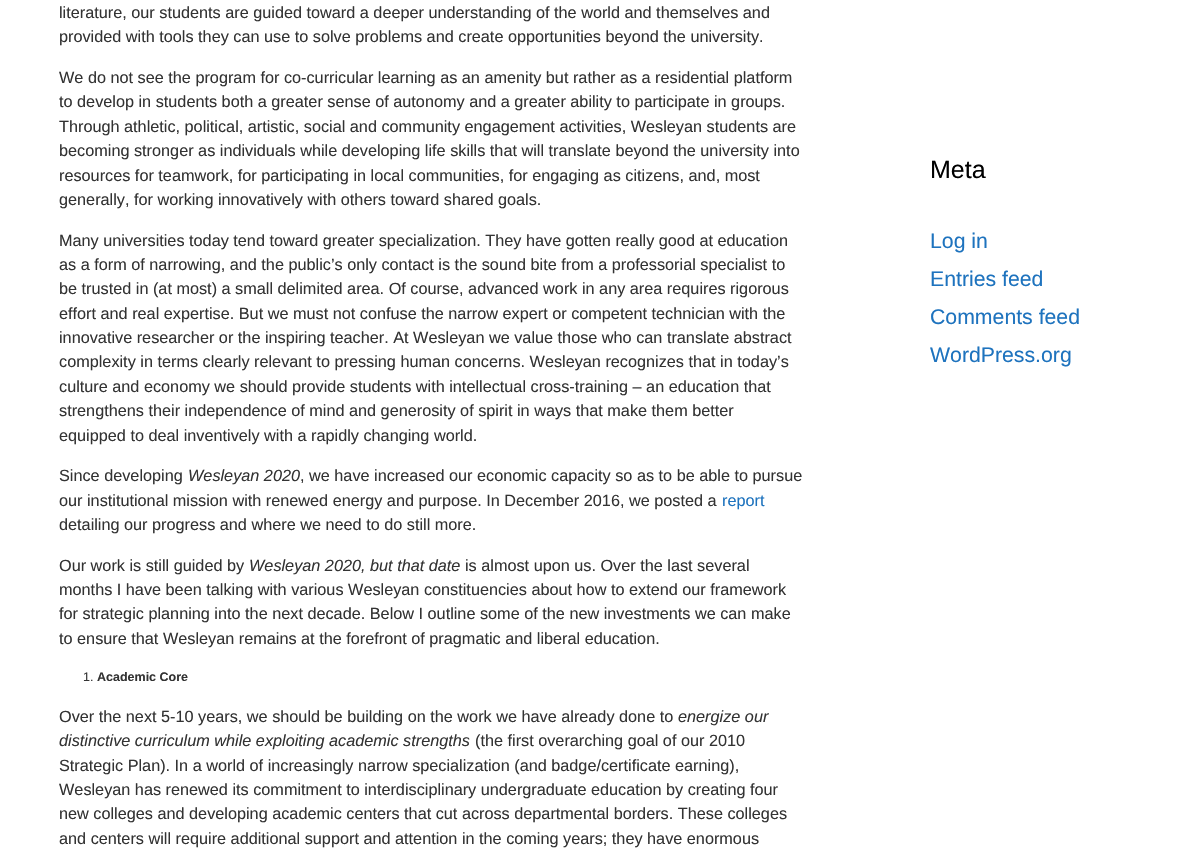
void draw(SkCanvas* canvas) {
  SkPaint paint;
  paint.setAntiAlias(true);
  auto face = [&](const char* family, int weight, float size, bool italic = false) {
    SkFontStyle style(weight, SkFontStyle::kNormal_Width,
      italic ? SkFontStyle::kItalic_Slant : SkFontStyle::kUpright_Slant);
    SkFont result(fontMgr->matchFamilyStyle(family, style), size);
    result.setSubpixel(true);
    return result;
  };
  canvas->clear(0xffffffff);
  auto f0 = face("Liberation Sans", 400, 16.25f);
  paint.setColor(0xff333333);
  {
    const struct { const char* s; float x, y; } items[] = {
      {"literature, our students are guided toward a deeper understanding of the world and themselves and", 59, 18},
      {"provided with tools they can use to solve problems and create opportunities beyond the university.", 59, 42},
      {"We do not see the program for co-curricular learning as an amenity but rather as a residential platform", 59, 83},
      {"to develop in students both a greater sense of autonomy and a greater ability to participate in groups.", 59, 107},
      {"Through athletic, political, artistic, social and community engagement activities, Wesleyan students are", 59, 132},
      {"becoming stronger as individuals while developing life skills that will translate beyond the university into", 59, 156},
      {"resources for teamwork, for participating in local communities, for engaging as citizens, and, most", 59, 181},
      {"generally, for working innovatively with others toward shared goals.", 59, 205},
      {"Many universities today tend toward greater specialization. They have gotten really good at education", 59, 246},
      {"as a form of narrowing, and the public’s only contact is the sound bite from a professorial specialist to", 59, 270},
      {"be trusted in (at most) a small delimited area. Of course, advanced work in any area requires rigorous", 59, 294},
      {"effort and real expertise. But we must not confuse the narrow expert or competent technician with the", 59, 319},
      {"innovative researcher or the inspiring teacher. At Wesleyan we value those who can translate abstract", 59, 343},
      {"complexity in terms clearly relevant to pressing human concerns. Wesleyan recognizes that in today’s", 59, 367},
      {"culture and economy we should provide students with intellectual cross-training – an education that", 59, 392},
      {"strengthens their independence of mind and generosity of spirit in ways that make them better", 59, 416},
      {"equipped to deal inventively with a rapidly changing world.", 59, 441},
      {"Since developing", 59, 481},
    };
    for (auto [s, x, y] : items) {
      canvas->drawString(s, x, y, f0, paint);
    }
  }
  auto f1 = face("Liberation Sans", 400, 16.25f, true);
  canvas->drawString("Wesleyan 2020", 188, 481, f1, paint);
  canvas->drawString(", we have increased our economic capacity so as to be able to pursue", 300, 481, f0, paint);
  canvas->drawString("our institutional mission with renewed energy and purpose. In December 2016, we posted a", 59, 506, f0, paint);
  paint.setColor(0xff1e73be);
  canvas->drawString("report", 722, 506, f0, paint);
  paint.setColor(0xff333333);
  canvas->drawString("detailing our progress and where we need to do still more.", 59, 530, f0, paint);
  canvas->drawString("Our work is still guided by", 59, 571, f0, paint);
  canvas->drawString("Wesleyan 2020, but that date", 249, 571, f1, paint);
  {
    const struct { const char* s; float x, y; } items[] = {
      {"is almost upon us. Over the last several", 465, 571},
      {"months I have been talking with various Wesleyan constituencies about how to extend our framework", 59, 595},
      {"for strategic planning into the next decade. Below I outline some of the new investments we can make", 59, 619},
      {"to ensure that Wesleyan remains at the forefront of pragmatic and liberal education.", 59, 644},
    };
    for (auto [s, x, y] : items) {
      canvas->drawString(s, x, y, f0, paint);
    }
  }
  auto f2 = face("Liberation Sans", 400, 12.5f);
  canvas->drawString("1.", 83, 681, f2, paint);
  auto f3 = face("Liberation Sans", 700, 12.5f);
  canvas->drawString("Academic Core", 97, 681, f3, paint);
  canvas->drawString("Over the next 5-10 years, we should be building on the work we have already done to", 59, 722, f0, paint);
  canvas->drawString("energize our", 678, 722, f1, paint);
  canvas->drawString("distinctive curriculum while exploiting academic strengths", 59, 746, f1, paint);
  {
    const struct { const char* s; float x, y; } items[] = {
      {"(the first overarching goal of our 2010", 475, 746},
      {"Strategic Plan). In a world of increasingly narrow specialization (and badge/certificate earning),", 59, 771},
      {"Wesleyan has renewed its commitment to interdisciplinary undergraduate education by creating four", 59, 795},
      {"new colleges and developing academic centers that cut across departmental borders. These colleges", 59, 819},
      {"and centers will require additional support and attention in the coming years; they have enormous", 59, 844},
    };
    for (auto [s, x, y] : items) {
      canvas->drawString(s, x, y, f0, paint);
    }
  }
  auto f4 = face("Liberation Sans", 400, 25);
  paint.setColor(0xff000000);
  canvas->drawString("Meta", 930, 178, f4, paint);
  auto f5 = face("Liberation Sans", 400, 21.25f);
  paint.setColor(0xff1e73be);
  {
    const struct { const char* s; float x, y; } items[] = {
      {"Log in", 930, 248},
      {"Entries feed", 930, 286},
      {"Comments feed", 930, 324},
      {"WordPress.org", 930, 362},
    };
    for (auto [s, x, y] : items) {
      canvas->drawString(s, x, y, f5, paint);
    }
  }
}
